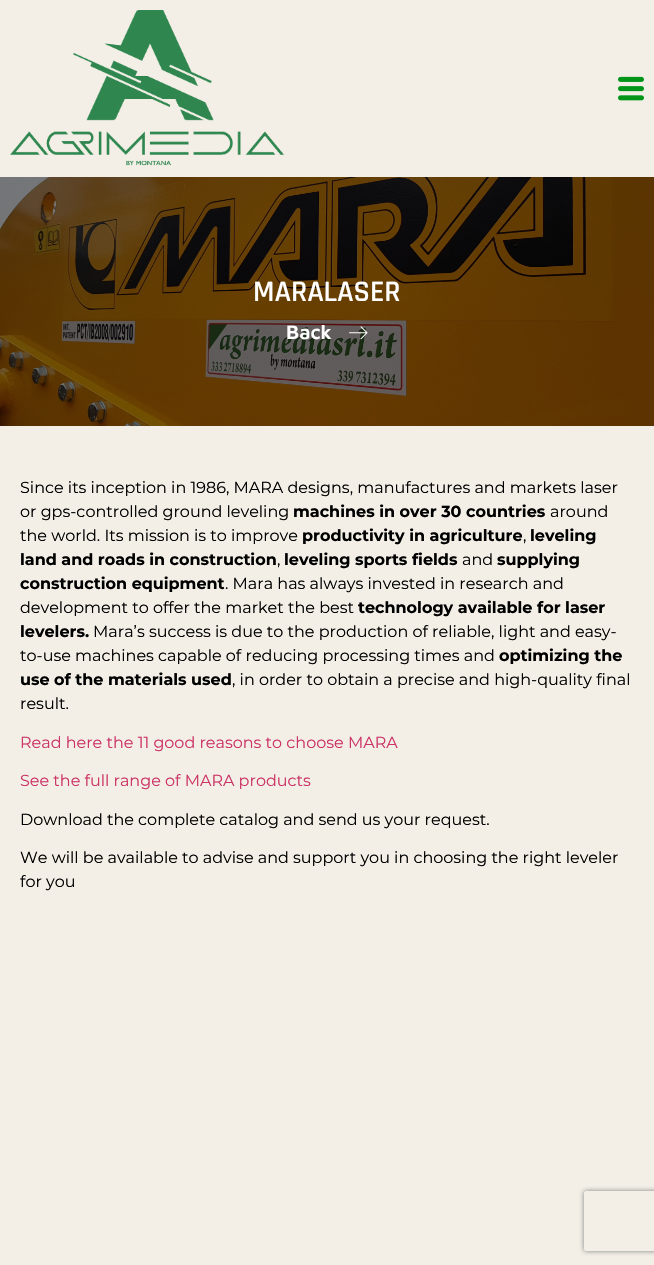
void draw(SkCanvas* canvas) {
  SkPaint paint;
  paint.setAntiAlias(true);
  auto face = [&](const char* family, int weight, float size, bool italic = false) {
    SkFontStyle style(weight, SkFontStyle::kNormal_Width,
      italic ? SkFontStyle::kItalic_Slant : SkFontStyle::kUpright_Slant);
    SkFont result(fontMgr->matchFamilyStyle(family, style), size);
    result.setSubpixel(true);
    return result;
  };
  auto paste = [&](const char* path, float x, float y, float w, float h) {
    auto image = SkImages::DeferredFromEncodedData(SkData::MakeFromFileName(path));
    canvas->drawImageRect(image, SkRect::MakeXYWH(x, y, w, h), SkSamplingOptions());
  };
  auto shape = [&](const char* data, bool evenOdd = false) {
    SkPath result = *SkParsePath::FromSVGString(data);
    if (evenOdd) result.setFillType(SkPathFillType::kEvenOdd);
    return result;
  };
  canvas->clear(0xfff3efe6);
  paste("img/1.png", 10, 10, 274, 156);
  paste("img/2.png", 618, 76, 26, 25);
  paste("img/3.png", 0, 177, 654, 249);
  paste("img/4.png", 349, 326, 19, 14);
  canvas->save();
  canvas->clipPath(shape("M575 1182H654V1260H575ZM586 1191H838C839 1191 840 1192 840 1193V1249C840 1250 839 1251 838 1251H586C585 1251 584 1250 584 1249V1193C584 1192 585 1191 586 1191Z", true), true);
  paint.setColor(0xff808080);
  paint.setMaskFilter(SkMaskFilter::MakeBlur(kNormal_SkBlurStyle, 2.5f));
  canvas->drawRoundRect(SkRect::MakeXYWH(584, 1191, 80, 60), 2, 2, paint);
  paint.setMaskFilter(nullptr);
  canvas->restore();
  auto f0 = face("Rajdhani", 600, 30);
  paint.setColor(0xffffffff);
  canvas->drawString("MARALASER", 253, 301, f0, paint);
  auto f1 = face("Maven Pro", 600, 20);
  canvas->drawString("Back", 286, 339, f1, paint);
  auto f2 = face("Montserrat", 400, 16);
  paint.setColor(0xff000000);
  canvas->drawString("Since its inception in 1986, MARA designs, manufactures and markets laser", 20, 493, f2, paint);
  canvas->drawString("or gps-controlled ground leveling", 20, 517, f2, paint);
  auto f3 = face("Montserrat", 700, 16);
  canvas->drawString("machines in over 30 countries", 293, 517, f3, paint);
  canvas->drawString("around", 550, 517, f2, paint);
  canvas->drawString("the world. Its mission is to improve", 20, 541, f2, paint);
  canvas->drawString("productivity in agriculture", 302, 541, f3, paint);
  canvas->drawString(",", 523, 541, f2, paint);
  canvas->drawString("leveling", 530, 541, f3, paint);
  canvas->drawString("land and roads in construction", 20, 565, f3, paint);
  canvas->drawString(",", 277, 565, f2, paint);
  canvas->drawString("leveling sports fields", 284, 565, f3, paint);
  canvas->drawString("and", 462, 565, f2, paint);
  canvas->drawString("supplying", 497, 565, f3, paint);
  canvas->drawString("construction equipment", 20, 589, f3, paint);
  canvas->drawString(". Mara has always invested in research and", 225, 589, f2, paint);
  canvas->drawString("development to offer the market the best", 20, 613, f2, paint);
  canvas->drawString("technology available for laser", 358, 613, f3, paint);
  canvas->drawString("levelers.", 20, 637, f3, paint);
  canvas->drawString("Mara’s success is due to the production of reliable, light and easy-", 93, 637, f2, paint);
  canvas->drawString("to-use machines capable of reducing processing times and", 20, 661, f2, paint);
  canvas->drawString("optimizing the", 499, 661, f3, paint);
  canvas->drawString("use of the materials used", 20, 685, f3, paint);
  canvas->drawString(", in order to obtain a precise and high-quality final", 232, 685, f2, paint);
  canvas->drawString("result.", 20, 709, f2, paint);
  paint.setColor(0xffcc3366);
  canvas->drawString("Read here the 11 good reasons to choose MARA", 20, 748, f2, paint);
  canvas->drawString("See the full range of MARA products", 20, 786, f2, paint);
  paint.setColor(0xff000000);
  {
    const struct { const char* s; float x, y; } items[] = {
      {"Download the complete catalog and send us your request.", 20, 825},
      {"We will be available to advise and support you in choosing the right leveler", 20, 863},
      {"for you", 20, 887},
    };
    for (auto [s, x, y] : items) {
      canvas->drawString(s, x, y, f2, paint);
    }
  }
}
